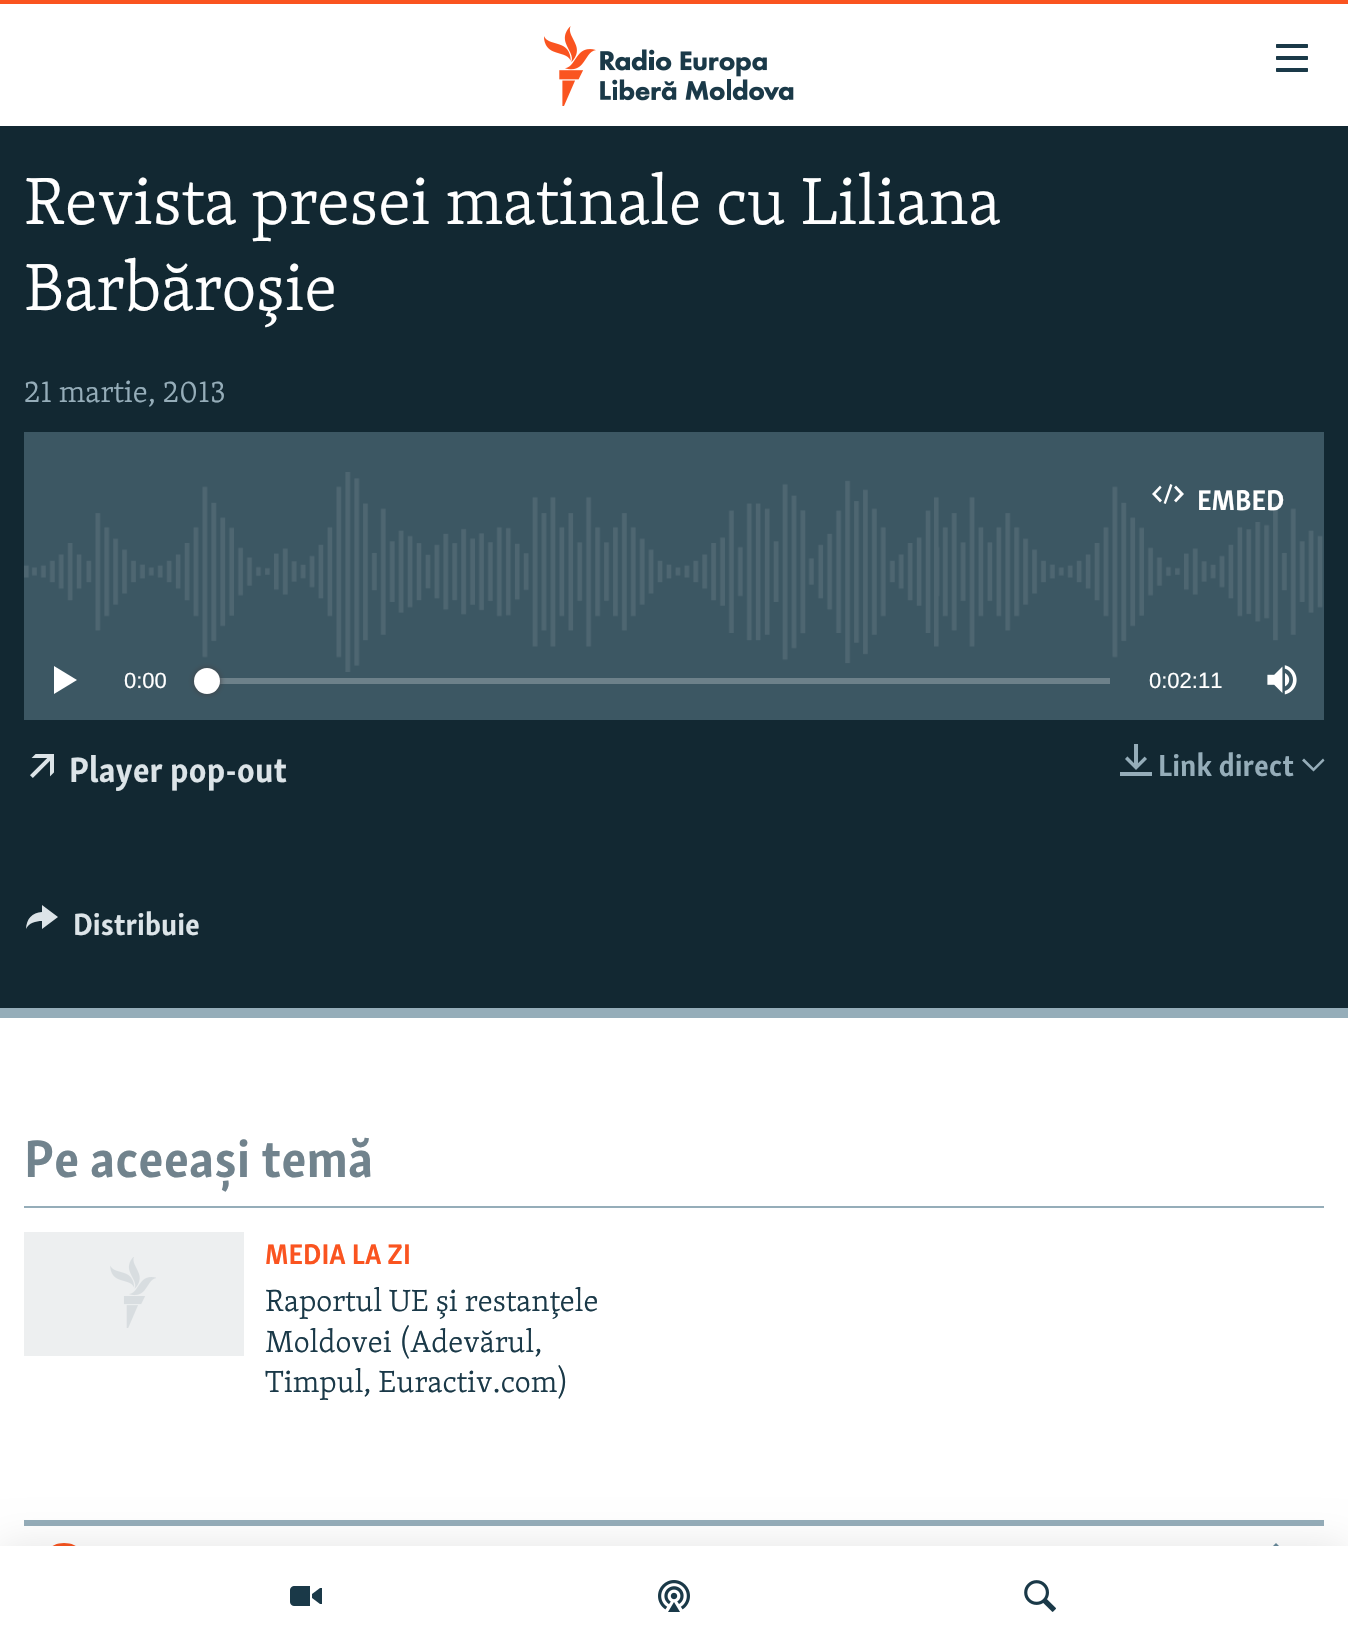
void draw(SkCanvas* canvas) {
  SkPaint paint;
  paint.setAntiAlias(true);
  auto face = [&](const char* family, int weight, float size, bool italic = false) {
    SkFontStyle style(weight, SkFontStyle::kNormal_Width,
      italic ? SkFontStyle::kItalic_Slant : SkFontStyle::kUpright_Slant);
    SkFont result(fontMgr->matchFamilyStyle(family, style), size);
    result.setSubpixel(true);
    return result;
  };
  auto paste = [&](const char* path, float x, float y, float w, float h) {
    auto image = SkImages::DeferredFromEncodedData(SkData::MakeFromFileName(path));
    canvas->drawImageRect(image, SkRect::MakeXYWH(x, y, w, h), SkSamplingOptions());
  };
  auto shape = [&](const char* data, bool evenOdd = false) {
    SkPath result = *SkParsePath::FromSVGString(data);
    if (evenOdd) result.setFillType(SkPathFillType::kEvenOdd);
    return result;
  };
  canvas->clear(0xffffffff);
  paint.setColor(0xfffa5420);
  canvas->drawRect(SkRect::MakeXYWH(0, 0, 1348, 4), paint);
  paste("img/1.png", 544, 26, 250, 80);
  paste("img/2.png", 1276, 44, 32, 28);
  paint.setColor(0xff95adb9);
  canvas->drawRect(SkRect::MakeXYWH(24, 1520, 1300, 6), paint);
  paint.setColor(0xfffa5420);
  canvas->drawPath(shape("M57 1578L78 1566L57 1553ZM64 1546C90 1546 90 1585 64 1585C39 1585 39 1546 64 1546ZM64 1543C35 1543 35 1588 64 1588C94 1588 94 1543 64 1543Z"), paint);
  paint.setColor(0xff678a9b);
  canvas->drawPath(shape("M1276 1588L1299 1566L1276 1543L1272 1547L1291 1566L1272 1584Z"), paint);
  paint.setColor(0x1a000000);
  paint.setMaskFilter(SkMaskFilter::MakeBlur(kNormal_SkBlurStyle, 20));
  canvas->drawRect(SkRect::MakeXYWH(0, 1546, 1348, 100), paint);
  paint.setMaskFilter(nullptr);
  paint.setColor(0xffffffff);
  canvas->drawRect(SkRect::MakeXYWH(0, 1546, 1348, 99), paint);
  paste("img/3.png", 290, 1586, 32, 20);
  paste("img/4.png", 658, 1580, 32, 32);
  paste("img/5.png", 1024, 1580, 32, 32);
  {
    const struct { float x, y, w, h; SkColor color; } items[] = {
      {0, 126, 1348, 882, 0xff122832},
      {0, 1008, 1348, 10, 0xff95adb9},
      {24, 432, 1300, 288, 0xff3c5763},
    };
    for (auto [x, y, w, h, color] : items) {
      paint.setColor(color);
      canvas->drawRect(SkRect::MakeXYWH(x, y, w, h), paint);
    }
  }
  paste("img/6.png", 24, 472, 1299, 200);
  paste("img/7.png", 1152, 484, 32, 20);
  paint.setColor(0xffffffff);
  canvas->drawPath(shape("M54 694L77 680L54 666Z"), paint);
  paint.setColor(0xff6d818a);
  canvas->drawRect(SkRect::MakeXYWH(219, 678, 891, 6), paint);
  paint.setColor(0xff414144);
  paint.setMaskFilter(SkMaskFilter::MakeBlur(kNormal_SkBlurStyle, 3));
  canvas->drawRoundRect(SkRect::MakeXYWH(194, 668, 26, 26), 13, 13, paint);
  paint.setMaskFilter(nullptr);
  paint.setColor(0xffffffff);
  canvas->drawCircle(207, 681, 13, paint);
  paste("img/8.png", 1267, 665, 30, 30);
  paste("img/9.png", 30, 754, 24, 24);
  paste("img/10.png", 1120, 744, 32, 32);
  paint.setColor(0xff95adb9);
  canvas->drawPath(shape("M1302 760.5L1313.5 771.5L1324.5 760.5L1323 758.5L1313.5 768L1304 758.5Z"), paint);
  paint.setColor(0xffdce4e8);
  canvas->drawPath(shape("M26 929C26.5 919 32 912.5 42 912V905L58 917L42 929V921C36 921 28.5 923 26 929Z"), paint);
  paint.setColor(0xff95adb9);
  canvas->drawRect(SkRect::MakeXYWH(24, 1206, 1300, 2), paint);
  paint.setColor(0xffedeff0);
  canvas->drawRect(SkRect::MakeXYWH(24, 1232, 220, 124), paint);
  paste("img/11.png", 110, 1257, 46, 71);
  auto f0 = face("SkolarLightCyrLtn", 300, 68.4f);
  paint.setColor(0xffffffff);
  canvas->drawString("Revista presei matinale cu Liliana", 24, 224, f0, paint);
  canvas->drawString("Barbăroşie", 24, 310, f0, paint);
  auto f1 = face("SkolarLightCyrLtn", 300, 31.5f);
  paint.setColor(0xff95adb9);
  canvas->drawString("21 martie, 2013", 24, 402, f1, paint);
  auto f2 = face("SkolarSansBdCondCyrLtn", 700, 29.25f);
  paint.setColor(0xffffffff);
  canvas->drawString("EMBED", 1197, 510, f2, paint);
  auto f3 = face("Liberation Sans", 400, 22);
  canvas->drawString("0:00", 124, 688, f3, paint);
  canvas->drawString("0:02:11", 1149, 688, f3, paint);
  auto f4 = face("SkolarSansBdCondCyrLtn", 700, 36);
  paint.setColor(0xffdce4e8);
  canvas->drawString("Player pop-out", 69, 782, f4, paint);
  auto f5 = face("SkolarSansBdCondCyrLtn", 700, 31.5f);
  paint.setColor(0xff95adb9);
  canvas->drawString("Link direct", 1158, 776, f5, paint);
  paint.setColor(0xffdce4e8);
  canvas->drawString("Distribuie", 73, 935, f5, paint);
  auto f6 = face("SkolarSansBdCondCyrLtn", 700, 54);
  paint.setColor(0xff71838d);
  canvas->drawString("Pe aceeași temă", 24, 1177, f6, paint);
  paint.setColor(0xfffa5420);
  canvas->drawString("MEDIA LA ZI", 265, 1264, f2, paint);
  paint.setColor(0xff1a3948);
  {
    const struct { const char* s; float x, y; } items[] = {
      {"Raportul UE şi restanţele", 265, 1311},
      {"Moldovei (Adevărul,", 265, 1352},
      {"Timpul, Euractiv.com)", 265, 1392},
    };
    for (auto [s, x, y] : items) {
      canvas->drawString(s, x, y, f1, paint);
    }
  }
}
